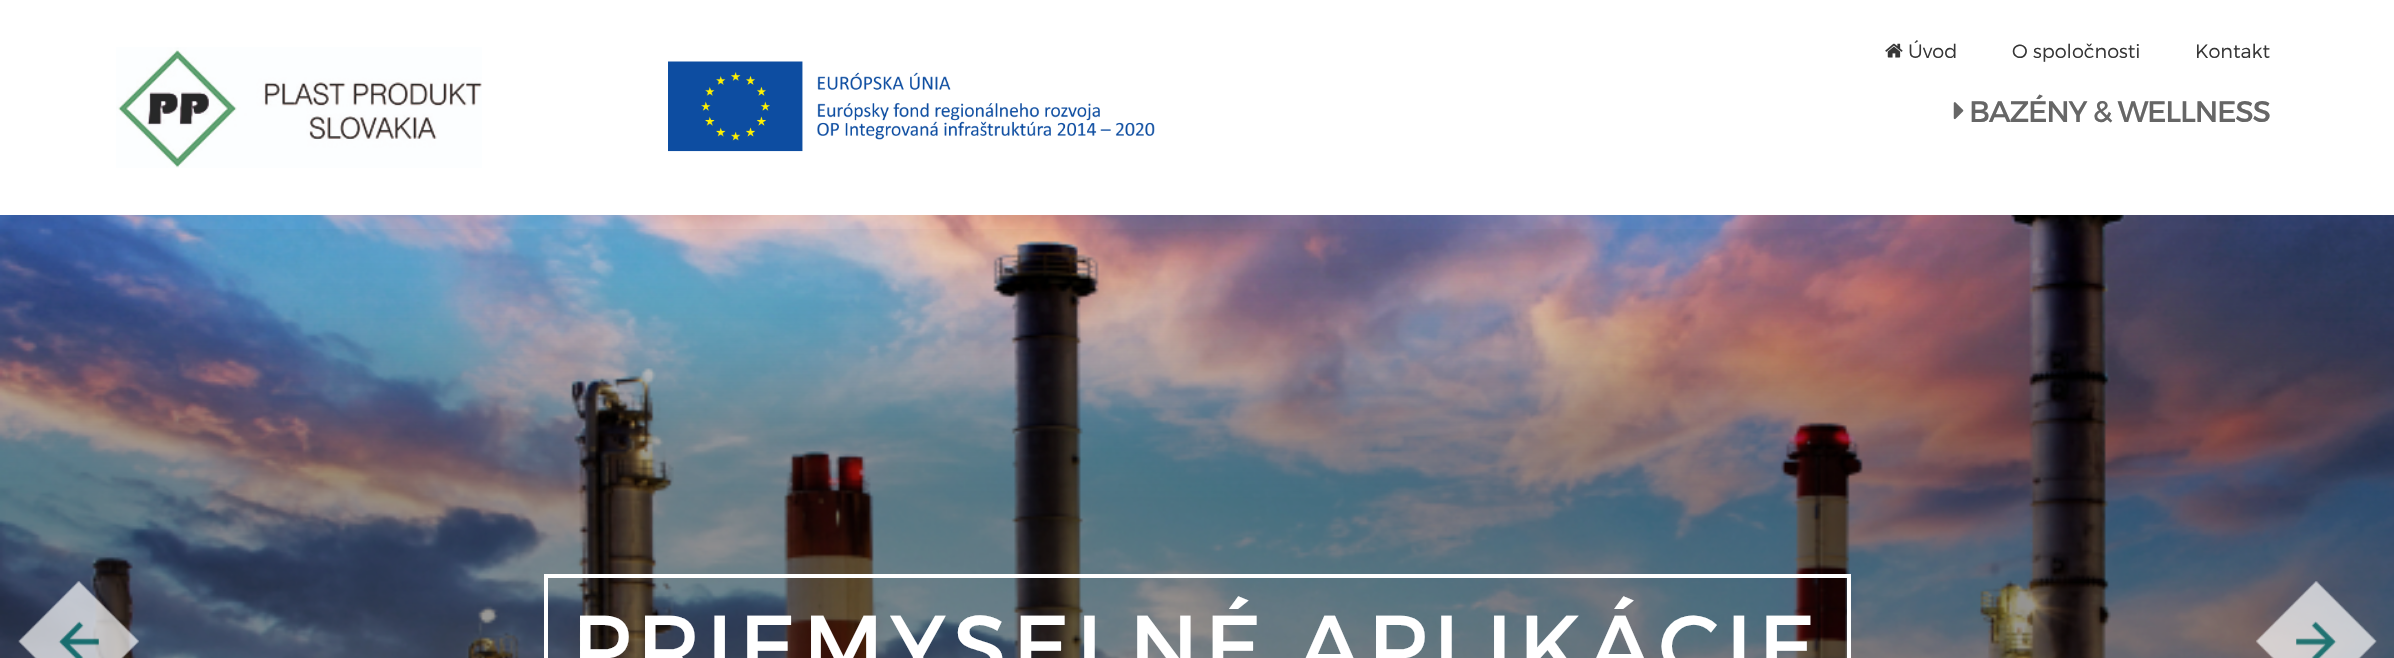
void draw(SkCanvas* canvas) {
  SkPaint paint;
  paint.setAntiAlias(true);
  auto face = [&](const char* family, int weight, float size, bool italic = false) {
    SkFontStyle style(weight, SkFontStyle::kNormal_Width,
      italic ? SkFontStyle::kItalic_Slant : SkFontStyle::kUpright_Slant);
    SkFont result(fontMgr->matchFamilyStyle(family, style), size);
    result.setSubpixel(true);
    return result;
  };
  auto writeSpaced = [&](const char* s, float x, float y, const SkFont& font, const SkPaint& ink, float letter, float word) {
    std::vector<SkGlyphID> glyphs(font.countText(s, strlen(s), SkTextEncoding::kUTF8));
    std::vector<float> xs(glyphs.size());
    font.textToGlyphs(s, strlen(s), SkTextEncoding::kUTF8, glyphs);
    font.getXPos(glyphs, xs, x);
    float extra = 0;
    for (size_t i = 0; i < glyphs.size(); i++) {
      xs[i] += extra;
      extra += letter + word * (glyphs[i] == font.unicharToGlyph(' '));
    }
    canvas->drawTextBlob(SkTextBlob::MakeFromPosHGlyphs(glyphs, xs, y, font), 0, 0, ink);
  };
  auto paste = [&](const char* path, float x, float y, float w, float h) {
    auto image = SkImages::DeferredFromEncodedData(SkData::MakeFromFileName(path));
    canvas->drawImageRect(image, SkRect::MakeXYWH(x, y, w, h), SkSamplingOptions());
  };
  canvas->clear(0xffffffff);
  paste("img/1.png", 116, 47, 366, 121);
  paste("img/2.png", 668, 61, 487, 91);
  paste("img/3.png", 1885, 43, 18, 15);
  paste("img/4.png", 1953, 102, 11, 18);
  paste("img/6.png", 0, 215, 2394, 443);
  paste("img/7.png", 0, 229, 2394, 429);
  paste("img/5.png", 18, 581, 121, 77);
  paint.setStroke(true);
  paint.setStrokeWidth(4);
  paint.setColor(0xffffffff);
  canvas->drawRect(SkRect::MakeXYWH(546, 576, 1303, 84), paint);
  paste("img/8.png", 2256, 581, 121, 77);
  auto f0 = face("Montserrat", 300, 19.25f);
  paint.setStroke(false);
  paint.setColor(0xff363636);
  {
    const struct { const char* s; float x, y; } items[] = {
      {"Úvod", 1908, 58},
      {"O spoločnosti", 2012, 58},
      {"Kontakt", 2195, 58},
    };
    for (auto [s, x, y] : items) {
      canvas->drawString(s, x, y, f0, paint);
    }
  }
  auto f1 = face("Montserrat", 400, 29.75f);
  paint.setColor(0xff666666);
  writeSpaced("BAZÉNY & WELLNESS", 1969, 122, f1, paint, -1.25f, 0);
  auto f2 = face("Montserrat", 400, 87.5f);
  paint.setColor(0xffffffff);
  writeSpaced("PRIEMYSELNÉ APLIKÁCIE", 572, 677, f2, paint, 6.25f, 0);
}
